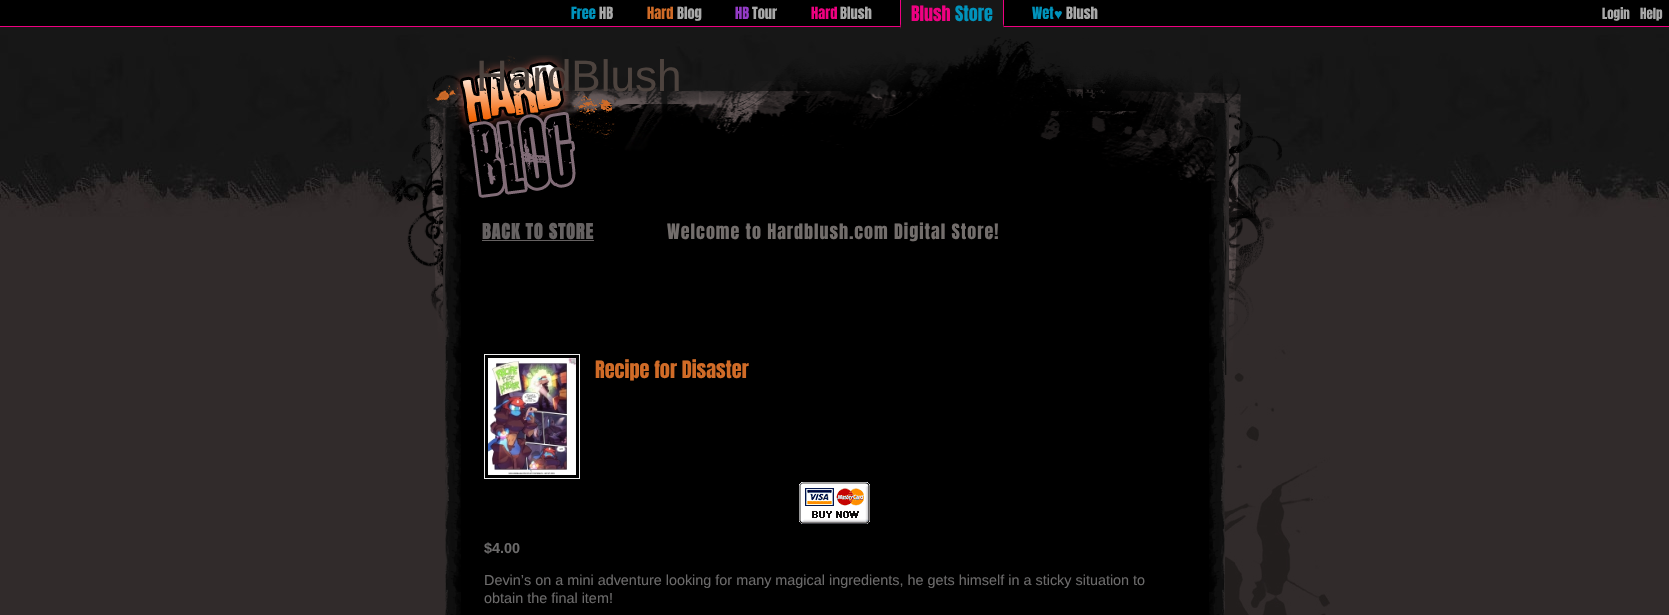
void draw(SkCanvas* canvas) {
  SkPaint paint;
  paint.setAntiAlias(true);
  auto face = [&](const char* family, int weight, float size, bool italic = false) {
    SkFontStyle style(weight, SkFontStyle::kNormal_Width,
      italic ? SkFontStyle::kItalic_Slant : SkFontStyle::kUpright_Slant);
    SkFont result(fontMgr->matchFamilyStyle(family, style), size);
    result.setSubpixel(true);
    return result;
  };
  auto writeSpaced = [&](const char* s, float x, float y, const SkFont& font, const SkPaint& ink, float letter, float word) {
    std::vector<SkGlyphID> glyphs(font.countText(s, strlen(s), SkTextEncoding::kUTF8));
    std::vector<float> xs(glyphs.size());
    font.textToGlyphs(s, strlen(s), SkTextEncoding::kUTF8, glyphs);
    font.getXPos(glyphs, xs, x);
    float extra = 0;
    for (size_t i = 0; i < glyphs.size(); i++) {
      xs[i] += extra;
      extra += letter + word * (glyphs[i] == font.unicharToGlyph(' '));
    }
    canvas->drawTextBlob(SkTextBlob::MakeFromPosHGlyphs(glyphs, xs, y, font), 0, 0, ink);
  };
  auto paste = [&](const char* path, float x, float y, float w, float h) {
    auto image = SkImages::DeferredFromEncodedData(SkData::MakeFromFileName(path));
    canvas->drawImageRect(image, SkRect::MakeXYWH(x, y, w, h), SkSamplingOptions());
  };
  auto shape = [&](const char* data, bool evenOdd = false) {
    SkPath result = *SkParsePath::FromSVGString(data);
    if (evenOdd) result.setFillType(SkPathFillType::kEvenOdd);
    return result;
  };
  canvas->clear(0xff312b2b);
  paste("img/1.png", 1225, 259, 105, 356);
  paste("img/2.png", 0, 27, 1669, 190);
  paste("img/3.png", 389, 37, 893, 338);
  {
    const struct { float x, y, w, h; SkColor color; } items[] = {
      {0, 0, 1669, 26, 0xff000000},
      {0, 26, 1669, 1, 0xffef0081},
      {901, 0, 102, 24, 0xff171717},
    };
    for (auto [x, y, w, h, color] : items) {
      paint.setColor(color);
      canvas->drawRect(SkRect::MakeXYWH(x, y, w, h), paint);
    }
  }
  paint.setColor(0xffef0081);
  canvas->drawPath(shape("M1004 0V29L1003 24V0Z"), paint);
  paint.setColor(0xff171717);
  canvas->drawPath(shape("M1004 29H900L901 24H1003Z"), paint);
  paint.setColor(0xffef0081);
  canvas->drawPath(shape("M900 29V0H901V24Z"), paint);
  paste("img/4.png", 435, 55, 181, 143);
  paste("img/5.png", 445, 208, 780, 129);
  paint.setColor(0xff666262);
  canvas->drawRect(SkRect::MakeXYWH(482, 240, 112, 1), paint);
  paste("img/6.png", 445, 337, 780, 278);
  paint.setStroke(true);
  paint.setStrokeWidth(1);
  paint.setColor(0xffeeeeee);
  canvas->drawRect(SkRect::MakeXYWH(484.5f, 354.5f, 95, 124), paint);
  paste("img/7.png", 488, 358, 88, 117);
  paste("img/8.png", 799, 482, 71, 42);
  auto f0 = face("Anton", 400, 14.4f);
  paint.setStroke(false);
  paint.setColor(0xff0093bc);
  canvas->drawString("Free", 571, 19, f0, paint);
  paint.setColor(0xffa9a9a9);
  canvas->drawString("HB", 599, 19, f0, paint);
  paint.setColor(0xffd06b27);
  canvas->drawString("Hard", 647, 19, f0, paint);
  paint.setColor(0xffa9a9a9);
  canvas->drawString("Blog", 677, 19, f0, paint);
  paint.setColor(0xff943bc7);
  canvas->drawString("HB", 735, 19, f0, paint);
  paint.setColor(0xffa9a9a9);
  canvas->drawString("Tour", 752, 19, f0, paint);
  paint.setColor(0xffef0081);
  canvas->drawString("Hard", 811, 19, f0, paint);
  paint.setColor(0xffa9a9a9);
  canvas->drawString("Blush", 840, 19, f0, paint);
  auto f1 = face("Anton", 400, 18);
  paint.setColor(0xffef0081);
  canvas->drawString("Blush", 911, 21, f1, paint);
  paint.setColor(0xff0093bc);
  canvas->drawString("Store", 955, 21, f1, paint);
  canvas->drawString("Wet", 1032, 19, f0, paint);
  auto f2 = face("Liberation Sans", 400, 14.4f);
  canvas->drawString("♥", 1054, 19, f2, paint);
  paint.setColor(0xffa9a9a9);
  canvas->drawString("Blush", 1066, 19, f0, paint);
  auto f3 = face("Anton", 400, 13);
  canvas->drawString("Login", 1602, 19, f3, paint);
  canvas->drawString("Help", 1640, 19, f3, paint);
  auto f4 = face("Liberation Sans", 400, 44);
  paint.setColor(0xff4d433e);
  canvas->drawString("HardBlush", 476, 91, f4, paint);
  auto f5 = face("Anton", 700, 18);
  paint.setColor(0xff666262);
  writeSpaced("BACK TO STORE", 482, 239, f5, paint, 1, 0);
  paint.setColor(0xff736e6c);
  writeSpaced("Welcome to Hardblush.com Digital Store!", 667, 239, f1, paint, 1, 0);
  auto f6 = face("Anton", 400, 20.25f);
  paint.setColor(0xffd06b27);
  canvas->drawString("Recipe for Disaster", 595, 378, f6, paint);
  auto f7 = face("Liberation Sans", 700, 14.4f);
  paint.setColor(0xff6b6a6a);
  canvas->drawString("$4.00", 484, 553, f7, paint);
  canvas->drawString("Devin’s on a mini adventure looking for many magical ingredients, he gets himself in a sticky situation to", 484, 585, f2, paint);
  canvas->drawString("obtain the final item!", 484, 603, f2, paint);
}
